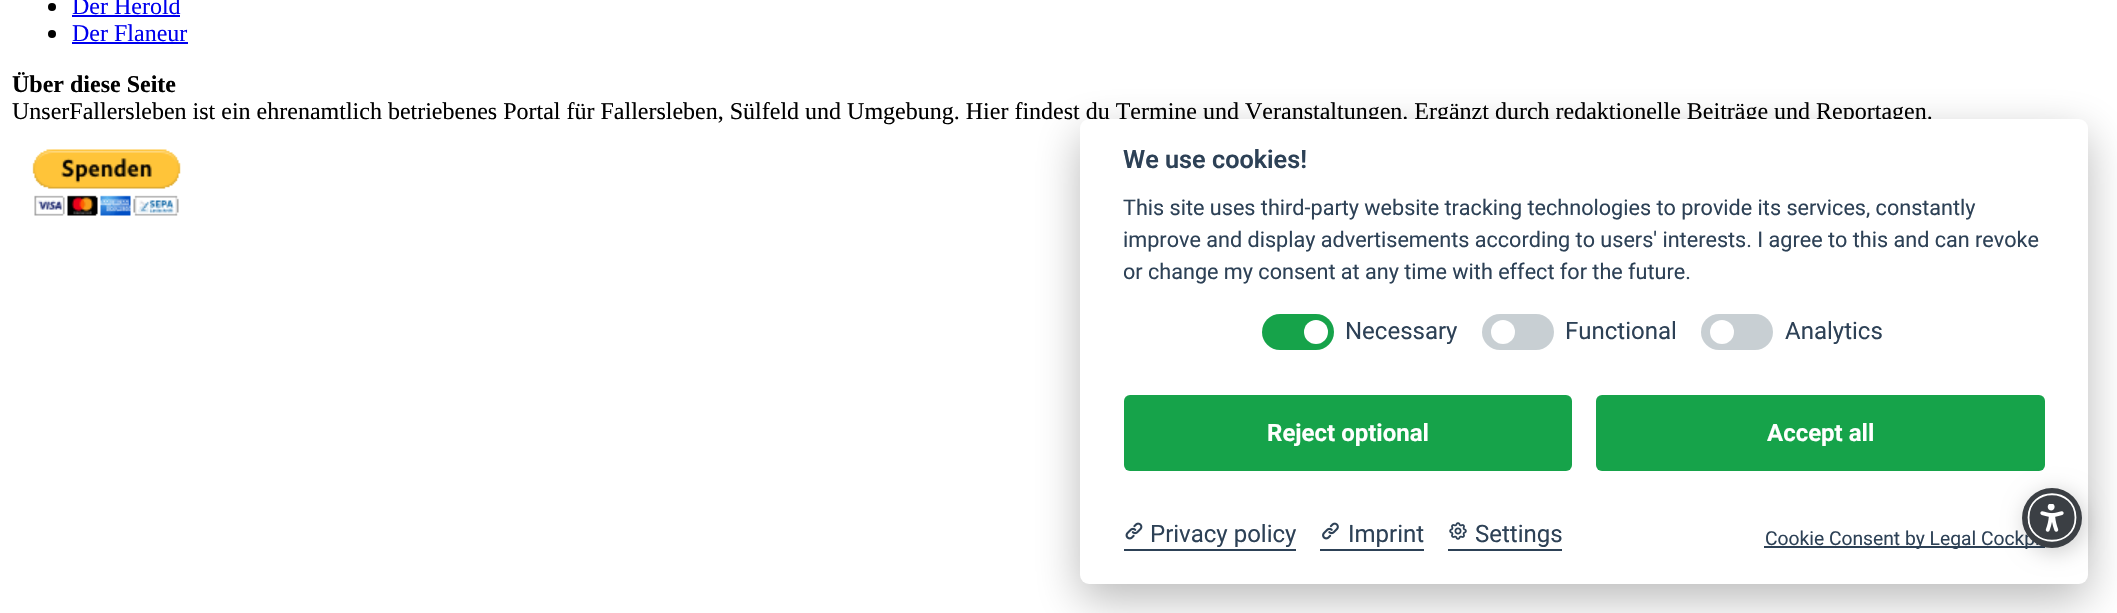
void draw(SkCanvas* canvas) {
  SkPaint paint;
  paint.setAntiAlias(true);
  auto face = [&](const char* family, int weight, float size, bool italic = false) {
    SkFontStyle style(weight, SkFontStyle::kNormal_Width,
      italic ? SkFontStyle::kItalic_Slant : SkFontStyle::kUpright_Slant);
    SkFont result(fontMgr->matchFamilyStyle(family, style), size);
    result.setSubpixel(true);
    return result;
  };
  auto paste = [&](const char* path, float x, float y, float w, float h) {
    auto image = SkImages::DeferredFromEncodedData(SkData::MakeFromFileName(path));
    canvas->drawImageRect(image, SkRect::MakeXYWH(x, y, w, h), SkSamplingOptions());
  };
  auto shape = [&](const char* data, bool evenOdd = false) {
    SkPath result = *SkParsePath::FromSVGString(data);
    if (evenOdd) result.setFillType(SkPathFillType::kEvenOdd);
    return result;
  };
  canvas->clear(0xffffffff);
  paint.setColor(0xff000000);
  canvas->drawCircle(52, 7, 4, paint);
  paint.setColor(0xff0000ee);
  canvas->drawRect(SkRect::MakeXYWH(72, 15, 108, 2), paint);
  paint.setColor(0xff000000);
  canvas->drawCircle(52, 34, 4, paint);
  paint.setColor(0xff0000ee);
  canvas->drawRect(SkRect::MakeXYWH(72, 42, 116, 2), paint);
  paste("img/1.png", 32, 149, 149, 67);
  paint.setColor(0x47020203);
  paint.setMaskFilter(SkMaskFilter::MakeBlur(kNormal_SkBlurStyle, 22.5f));
  canvas->drawRoundRect(SkRect::MakeXYWH(1080, 134, 1008, 465), 9, 9, paint);
  paint.setMaskFilter(nullptr);
  auto f0 = face("Liberation Serif", 400, 24);
  paint.setColor(0xff0000ee);
  canvas->drawString("Der Herold", 72, 14, f0, paint);
  canvas->drawString("Der Flaneur", 72, 41, f0, paint);
  auto f1 = face("Liberation Serif", 700, 24);
  paint.setColor(0xff000000);
  canvas->drawString("Über diese Seite", 12, 92, f1, paint);
  canvas->drawString("UnserFallersleben ist ein ehrenamtlich betriebenes Portal für Fallersleben, Sülfeld und Umgebung. Hier findest du Termine und Veranstaltungen. Ergänzt durch redaktionelle Beiträge und Reportagen.", 12, 119, f0, paint);
  paint.setColor(0xffffffff);
  canvas->drawRoundRect(SkRect::MakeXYWH(1080, 119, 1008, 465), 9, 9, paint);
  auto f2 = face("Roboto", 600, 25.25f);
  paint.setColor(0xff2d4156);
  canvas->drawString("We use cookies!", 1123, 168, f2, paint);
  auto f3 = face("Roboto", 400, 21.6f);
  {
    const struct { const char* s; float x, y; } items[] = {
      {"This site uses third-party website tracking technologies to provide its services, constantly", 1123, 215},
      {"improve and display advertisements according to users' interests. I agree to this and can revoke", 1123, 247},
      {"or change my consent at any time with effect for the future.", 1123, 279},
    };
    for (auto [s, x, y] : items) {
      canvas->drawString(s, x, y, f3, paint);
    }
  }
  paint.setColor(0xff16a34a);
  canvas->drawRoundRect(SkRect::MakeXYWH(1262, 314, 72, 36), 18, 18, paint);
  paint.setColor(0xffffffff);
  canvas->drawCircle(1316, 332, 12, paint);
  auto f4 = face("Roboto", 400, 24);
  paint.setColor(0xff2d4156);
  canvas->drawString("Necessary", 1345, 339, f4, paint);
  paint.setColor(0xffc8cfd3);
  canvas->drawRoundRect(SkRect::MakeXYWH(1482, 314, 72, 36), 18, 18, paint);
  paint.setColor(0xffffffff);
  canvas->drawCircle(1503, 332, 12, paint);
  paint.setColor(0xff2d4156);
  canvas->drawString("Functional", 1565, 339, f4, paint);
  paint.setColor(0xffc8cfd3);
  canvas->drawRoundRect(SkRect::MakeXYWH(1701, 314, 72, 36), 18, 18, paint);
  paint.setColor(0xffffffff);
  canvas->drawCircle(1722, 332, 12, paint);
  paint.setColor(0xff2d4156);
  canvas->drawString("Analytics", 1785, 339, f4, paint);
  paint.setColor(0xff16a34a);
  canvas->drawRoundRect(SkRect::MakeXYWH(1124, 395, 448, 76), 6, 6, paint);
  auto f5 = face("Roboto", 700, 24);
  paint.setColor(0xffffffff);
  canvas->drawString("Reject optional", 1267, 441, f5, paint);
  paint.setColor(0xff16a34a);
  canvas->drawRoundRect(SkRect::MakeXYWH(1596, 395, 449, 76), 6, 6, paint);
  paint.setColor(0xffffffff);
  canvas->drawString("Accept all", 1767, 441, f5, paint);
  paint.setColor(0xff2d4156);
  canvas->drawRect(SkRect::MakeXYWH(1124, 549, 172, 2), paint);
  paste("img/2.png", 1125, 522, 18, 18);
  canvas->drawString("Privacy policy", 1150, 542, f4, paint);
  canvas->drawRect(SkRect::MakeXYWH(1320, 549, 104, 2), paint);
  paste("img/3.png", 1322, 522, 17, 18);
  canvas->drawString("Imprint", 1348, 542, f4, paint);
  canvas->drawRect(SkRect::MakeXYWH(1448, 549, 114, 2), paint);
  paste("img/4.png", 1449, 522, 18, 18);
  canvas->drawString("Settings", 1475, 542, f4, paint);
  canvas->drawRect(SkRect::MakeXYWH(1764, 546, 281, 2), paint);
  auto f6 = face("Roboto", 400, 19.25f);
  canvas->drawString("Cookie Consent by Legal Cockpi", 1765, 545, f6, paint);
  paint.setColor(0x33000000);
  paint.setMaskFilter(SkMaskFilter::MakeBlur(kNormal_SkBlurStyle, 11));
  canvas->drawRoundRect(SkRect::MakeXYWH(2025, 492, 60, 60), 30, 30, paint);
  paint.setMaskFilter(nullptr);
  paint.setColor(0xff3b3f44);
  canvas->drawCircle(2052, 518, 30, paint);
  canvas->save();
  canvas->clipPath(shape("M2052.5 492C2066.5 492 2078 503.5 2078 517.5C2078 531.5 2066.5 543 2052.5 543C2038.5 543 2027 531.5 2027 517.5C2027 503.5 2038.5 492 2052.5 492Z"), true);
  paint.setStroke(true);
  paint.setStrokeWidth(1.8f);
  paint.setColor(0xffffffff);
  canvas->drawPath(shape("M2028.5 517.5C2028.5 486.5 2075.5 486.5 2075.5 517.5C2075.5 548.5 2028.5 548.5 2028.5 517.5"), paint);
  canvas->restore();
  paste("img/5.png", 2040, 504, 24, 28);
}
